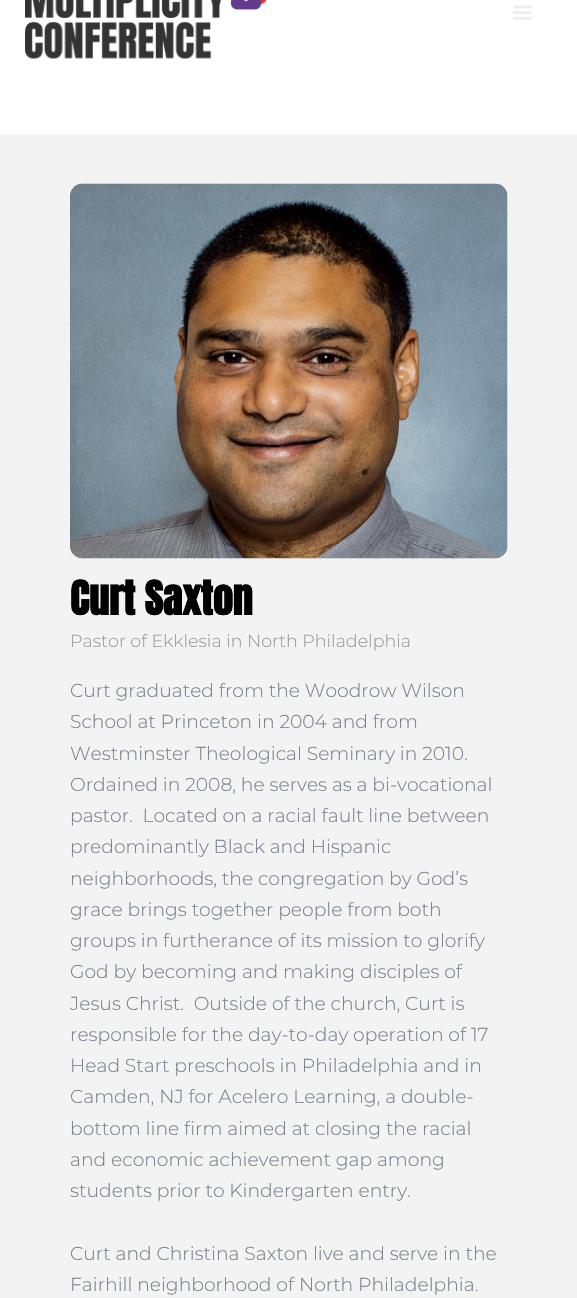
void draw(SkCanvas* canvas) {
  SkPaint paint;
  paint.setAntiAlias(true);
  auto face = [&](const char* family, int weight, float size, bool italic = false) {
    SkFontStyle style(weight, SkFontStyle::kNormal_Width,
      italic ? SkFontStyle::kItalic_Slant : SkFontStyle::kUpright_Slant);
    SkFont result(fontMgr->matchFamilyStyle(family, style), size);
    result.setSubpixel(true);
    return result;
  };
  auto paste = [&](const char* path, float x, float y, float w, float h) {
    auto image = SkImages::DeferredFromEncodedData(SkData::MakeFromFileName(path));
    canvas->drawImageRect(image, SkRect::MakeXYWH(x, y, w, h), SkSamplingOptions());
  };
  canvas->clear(0xffffffff);
  paste("img/1.png", 25, 0, 242, 59);
  paste("img/2.png", 513, 5, 19, 15);
  paint.setColor(0xfff3f3f3);
  canvas->drawRect(SkRect::MakeXYWH(0, 134, 577, 1164), paint);
  paste("img/3.png", 70, 183, 438, 376);
  auto f0 = face("Anton", 700, 40);
  paint.setColor(0xff000000);
  canvas->drawString("Curt Saxton", 70, 615, f0, paint);
  auto f1 = face("Montserrat", 300, 17.5f);
  paint.setColor(0xff989a9e);
  canvas->drawString("Pastor of Ekklesia in North Philadelphia", 70, 647, f1, paint);
  auto f2 = face("Montserrat", 300, 18.75f);
  paint.setColor(0xff7a818f);
  {
    const struct { const char* s; float x, y; } items[] = {
      {"Curt graduated from the Woodrow Wilson", 70, 697},
      {"School at Princeton in 2004 and from", 70, 728},
      {"Westminster Theological Seminary in 2010.", 70, 760},
      {"Ordained in 2008, he serves as a bi-vocational", 70, 791},
      {"pastor.  Located on a racial fault line between", 70, 822},
      {"predominantly Black and Hispanic", 70, 853},
      {"neighborhoods, the congregation by God’s", 70, 885},
      {"grace brings together people from both", 70, 916},
      {"groups in furtherance of its mission to glorify", 70, 947},
      {"God by becoming and making disciples of", 70, 978},
      {"Jesus Christ.  Outside of the church, Curt is", 70, 1010},
      {"responsible for the day-to-day operation of 17", 70, 1041},
      {"Head Start preschools in Philadelphia and in", 70, 1072},
      {"Camden, NJ for Acelero Learning, a double-", 70, 1103},
      {"bottom line firm aimed at closing the racial", 70, 1135},
      {"and economic achievement gap among", 70, 1166},
      {"students prior to Kindergarten entry.", 70, 1197},
      {"Curt and Christina Saxton live and serve in the", 70, 1260},
      {"Fairhill neighborhood of North Philadelphia.", 70, 1291},
    };
    for (auto [s, x, y] : items) {
      canvas->drawString(s, x, y, f2, paint);
    }
  }
}
